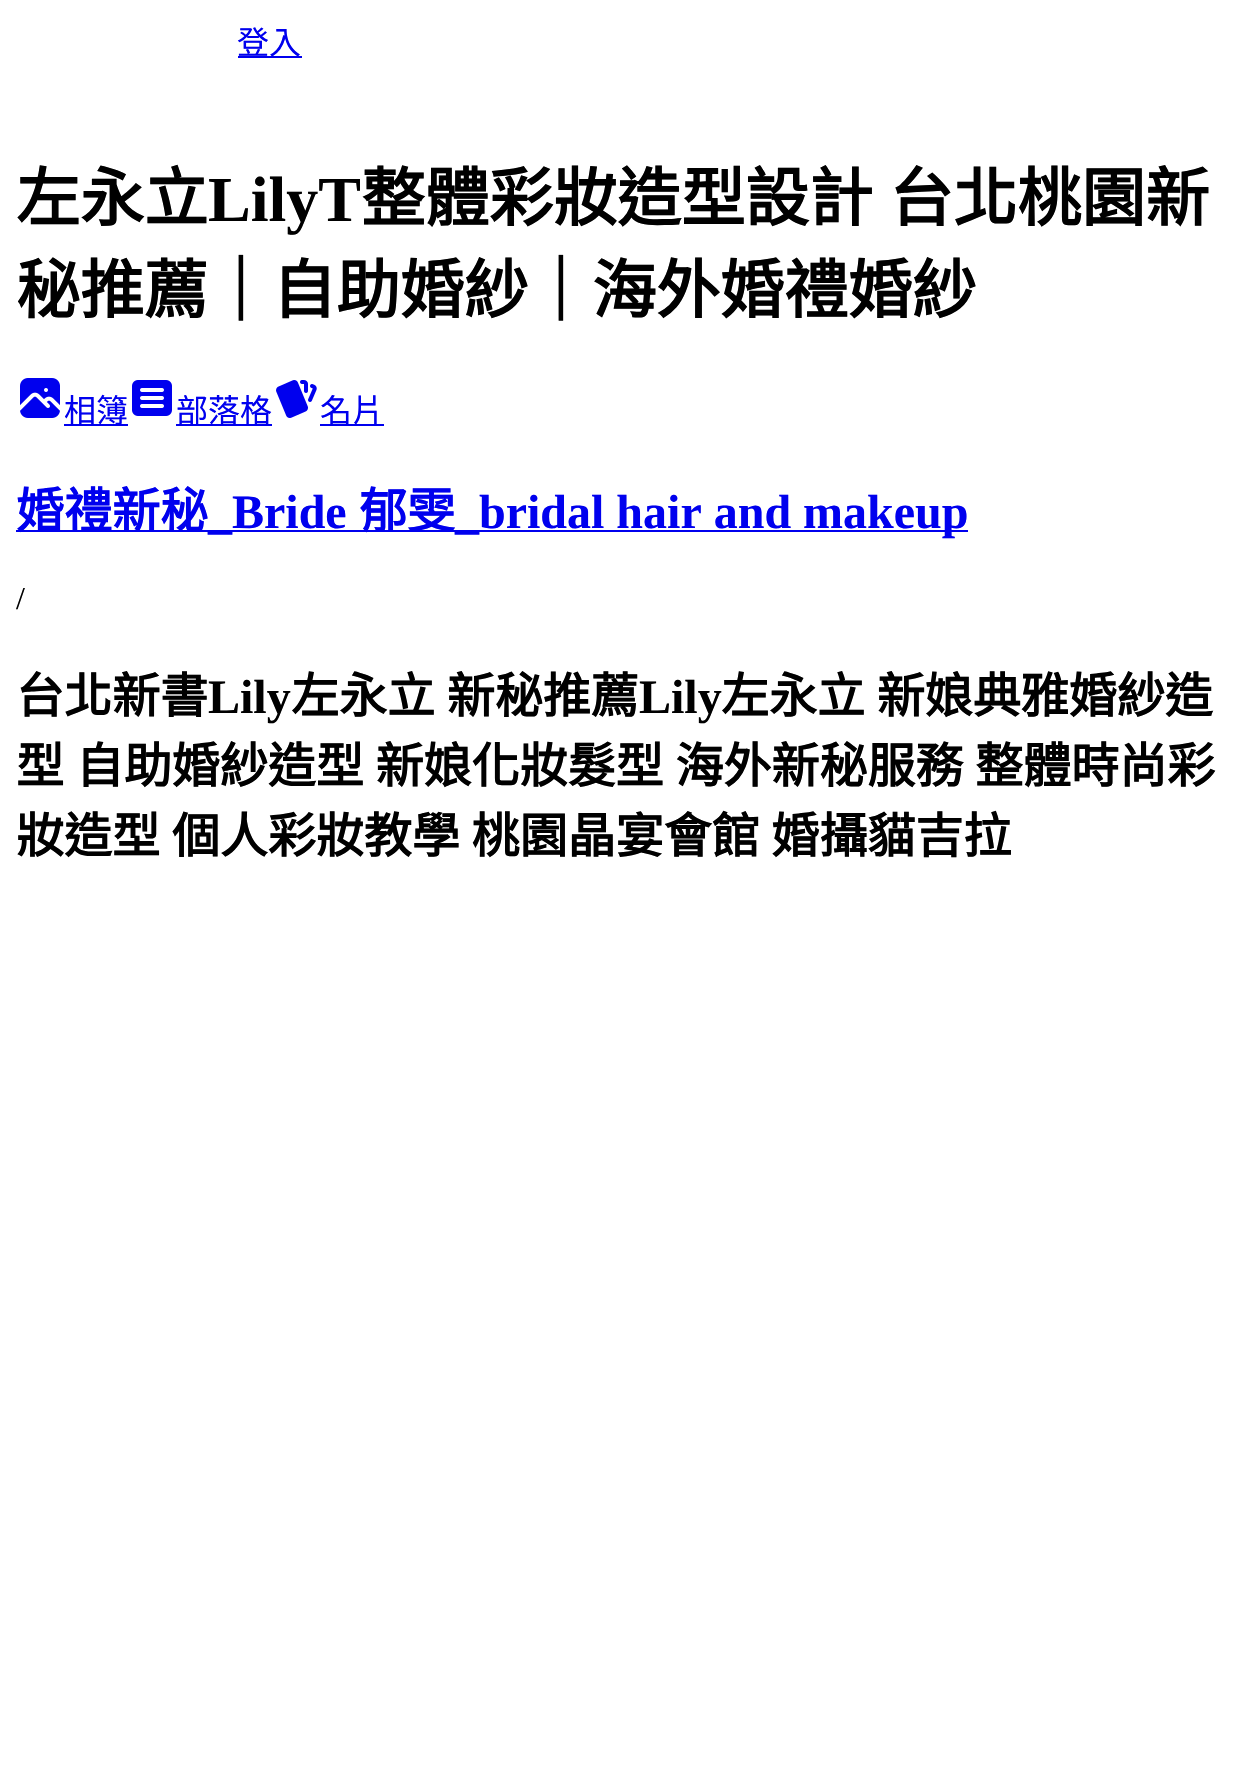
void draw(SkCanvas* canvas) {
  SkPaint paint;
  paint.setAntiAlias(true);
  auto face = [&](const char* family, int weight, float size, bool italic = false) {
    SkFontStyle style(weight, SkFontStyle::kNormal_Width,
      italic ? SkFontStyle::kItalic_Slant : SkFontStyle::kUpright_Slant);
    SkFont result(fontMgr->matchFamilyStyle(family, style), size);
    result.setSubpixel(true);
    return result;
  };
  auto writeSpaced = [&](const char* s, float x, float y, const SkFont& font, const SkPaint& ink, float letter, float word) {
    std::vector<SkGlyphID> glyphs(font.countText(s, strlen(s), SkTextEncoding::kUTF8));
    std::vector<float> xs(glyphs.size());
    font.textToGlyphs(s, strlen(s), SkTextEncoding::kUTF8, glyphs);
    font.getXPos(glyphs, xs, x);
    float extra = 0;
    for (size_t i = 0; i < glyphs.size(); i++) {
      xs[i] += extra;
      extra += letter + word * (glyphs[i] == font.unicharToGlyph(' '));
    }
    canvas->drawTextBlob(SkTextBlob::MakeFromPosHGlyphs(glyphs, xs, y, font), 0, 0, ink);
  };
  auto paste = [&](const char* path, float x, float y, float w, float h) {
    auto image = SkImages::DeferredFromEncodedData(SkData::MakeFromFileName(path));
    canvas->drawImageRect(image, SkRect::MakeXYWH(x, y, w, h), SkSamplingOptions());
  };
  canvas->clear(0xffffffff);
  paint.setColor(0xff0000ee);
  canvas->drawRect(SkRect::MakeXYWH(238, 56, 64, 2), paint);
  paste("img/1.png", 20, 378, 40, 40);
  canvas->drawRect(SkRect::MakeXYWH(64, 424, 64, 2), paint);
  paste("img/2.png", 132, 380, 40, 36);
  canvas->drawRect(SkRect::MakeXYWH(176, 424, 96, 2), paint);
  paste("img/3.png", 276, 380, 41, 38);
  canvas->drawRect(SkRect::MakeXYWH(320, 424, 64, 2), paint);
  canvas->drawRect(SkRect::MakeXYWH(16, 530, 952, 2), paint);
  auto f0 = face("Noto Sans CJK TC", 400, 32);
  canvas->drawString("登入", 237, 54, f0, paint);
  auto f1 = face("Noto Sans CJK TC", 700, 64);
  paint.setColor(0xff000000);
  canvas->drawString("左永立", 16, 221, f1, paint);
  auto f2 = face("Liberation Serif", 700, 64);
  canvas->drawString("LilyT", 208, 221, f2, paint);
  writeSpaced("整體彩妝造型設計 台北桃園新", 361, 221, f1, paint, 0, 2);
  canvas->drawString("秘推薦｜自助婚紗｜海外婚禮婚紗", 16, 313, f1, paint);
  paint.setColor(0xff0000ee);
  {
    const struct { const char* s; float x, y; } items[] = {
      {"相簿", 64, 422},
      {"部落格", 176, 422},
      {"名片", 320, 422},
    };
    for (auto [s, x, y] : items) {
      canvas->drawString(s, x, y, f0, paint);
    }
  }
  auto f3 = face("Noto Sans CJK TC", 700, 48);
  canvas->drawString("婚禮新秘", 16, 528, f3, paint);
  auto f4 = face("Liberation Serif", 700, 48);
  canvas->drawString("_Bride", 208, 528, f4, paint);
  canvas->drawString("郁雯", 359, 528, f3, paint);
  canvas->drawString("_bridal hair and makeup", 455, 528, f4, paint);
  auto f5 = face("Liberation Serif", 400, 32);
  paint.setColor(0xff000000);
  canvas->drawString("/", 16, 609, f5, paint);
  canvas->drawString("台北新書", 16, 713, f3, paint);
  canvas->drawString("Lily", 208, 713, f4, paint);
  writeSpaced("左永立 新秘推薦", 291, 713, f3, paint, 0, 1);
  canvas->drawString("Lily", 639, 713, f4, paint);
  {
    const struct { const char* s; float x, y; } items[] = {
      {"左永立 新娘典雅婚紗造", 721, 713},
      {"型 自助婚紗造型 新娘化妝髮型 海外新秘服務 整體時尚彩", 16, 783},
      {"妝造型 個人彩妝教學 桃園晶宴會館 婚攝貓吉拉", 16, 853},
    };
    for (auto [s, x, y] : items) {
      writeSpaced(s, x, y, f3, paint, 0, 1);
    }
  }
}
